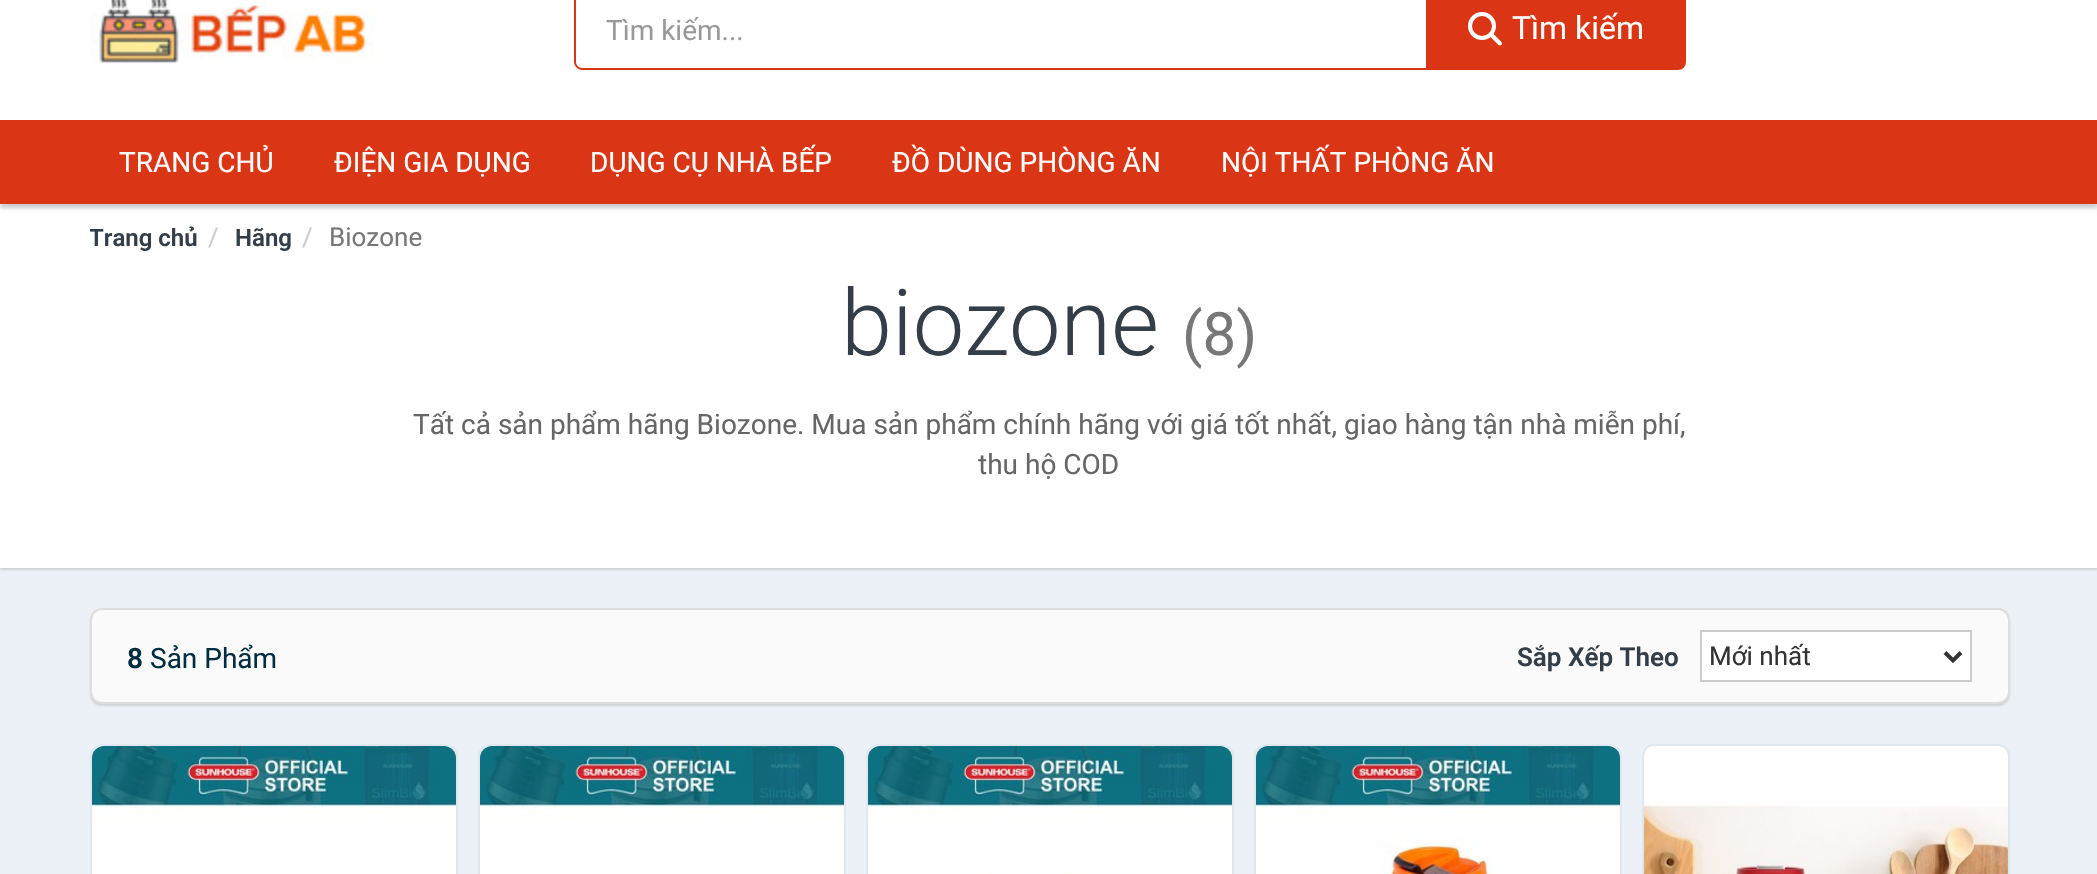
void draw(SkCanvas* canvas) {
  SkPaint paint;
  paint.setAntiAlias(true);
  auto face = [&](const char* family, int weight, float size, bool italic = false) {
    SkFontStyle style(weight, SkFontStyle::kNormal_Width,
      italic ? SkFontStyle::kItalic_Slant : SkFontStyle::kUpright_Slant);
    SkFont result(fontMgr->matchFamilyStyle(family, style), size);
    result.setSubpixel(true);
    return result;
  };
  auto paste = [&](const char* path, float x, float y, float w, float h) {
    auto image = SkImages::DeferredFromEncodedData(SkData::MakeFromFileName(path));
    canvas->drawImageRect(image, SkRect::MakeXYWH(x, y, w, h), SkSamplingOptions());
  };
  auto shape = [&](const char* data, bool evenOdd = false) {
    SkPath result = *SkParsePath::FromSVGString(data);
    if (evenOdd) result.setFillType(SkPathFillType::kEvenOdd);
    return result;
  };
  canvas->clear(0xffffffff);
  paste("img/1.png", 90, 0, 284, 63);
  paint.setColor(0xffda3615);
  canvas->drawPath(shape("M582-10H1428V70H582C578 70 574 66 574 62V-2C574-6 578-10 582-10ZM582-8H1428V68H582C579 68 576 65 576 62V-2C576-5 579-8 582-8Z", true), paint);
  canvas->drawPath(shape("M1426-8H1678C1682.5-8 1686-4.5 1686 0V62C1686 66.5 1682.5 70 1678 70H1426Z"), paint);
  paint.setStroke(true);
  paint.setStrokeWidth(4);
  paint.setColor(0xffffffff);
  canvas->drawCircle(1482, 26, 12, paint);
  paint.setStroke(false);
  canvas->drawPath(shape("M1491.5 32L1501.5 42C1502 43 1502 44 1501.5 45C1500.5 45.5 1499.5 45.5 1498.5 45L1488.5 35Z"), paint);
  paint.setColor(0x33000000);
  paint.setMaskFilter(SkMaskFilter::MakeBlur(kNormal_SkBlurStyle, 2));
  canvas->drawRect(SkRect::MakeXYWH(0, 124, 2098, 84), paint);
  paint.setMaskFilter(nullptr);
  paint.setColor(0xffda3615);
  canvas->drawRect(SkRect::MakeXYWH(0, 120, 2097, 84), paint);
  paint.setColor(0xffecf1f7);
  canvas->drawRect(SkRect::MakeXYWH(0, 568, 2097, 306), paint);
  paint.setColor(0x80b4b4b4);
  paint.setMaskFilter(SkMaskFilter::MakeBlur(kNormal_SkBlurStyle, 1));
  canvas->drawRect(SkRect::MakeXYWH(0, 276, 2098, 294), paint);
  paint.setMaskFilter(nullptr);
  paint.setColor(0xffffffff);
  canvas->drawRect(SkRect::MakeXYWH(0, 275, 2097, 293), paint);
  paint.setColor(0x80b4b4b4);
  paint.setMaskFilter(SkMaskFilter::MakeBlur(kNormal_SkBlurStyle, 1));
  canvas->drawRoundRect(SkRect::MakeXYWH(90, 610, 1920, 96), 12, 12, paint);
  paint.setMaskFilter(nullptr);
  paint.setColor(0xfffafafa);
  canvas->drawRoundRect(SkRect::MakeXYWH(91, 609, 1918, 94), 11, 11, paint);
  paint.setStroke(true);
  paint.setStrokeWidth(2);
  paint.setColor(0xffdddddd);
  canvas->drawRoundRect(SkRect::MakeXYWH(91, 609, 1918, 94), 11, 11, paint);
  paint.setStroke(false);
  paint.setColor(0xffffffff);
  canvas->drawRect(SkRect::MakeXYWH(1701, 631, 270, 50), paint);
  paint.setStroke(true);
  paint.setColor(0xffcccccc);
  canvas->drawRect(SkRect::MakeXYWH(1701, 631, 270, 50), paint);
  paint.setStrokeWidth(4);
  paint.setColor(0xff333333);
  canvas->drawPath(shape("M1945 652.5L1953 660.5L1961 652.5"), paint);
  paint.setStroke(false);
  paint.setColor(0xffffffff);
  canvas->drawRoundRect(SkRect::MakeXYWH(91, 745, 366, 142), 11, 11, paint);
  paint.setStroke(true);
  paint.setStrokeWidth(2);
  paint.setColor(0xffdfe7ef);
  canvas->drawRoundRect(SkRect::MakeXYWH(91, 745, 366, 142), 11, 11, paint);
  paste("img/2.png", 92, 746, 364, 128);
  paint.setStroke(false);
  paint.setColor(0xffffffff);
  canvas->drawRoundRect(SkRect::MakeXYWH(479, 745, 366, 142), 11, 11, paint);
  paint.setStroke(true);
  paint.setColor(0xffdfe7ef);
  canvas->drawRoundRect(SkRect::MakeXYWH(479, 745, 366, 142), 11, 11, paint);
  paste("img/2.png", 480, 746, 364, 128);
  paint.setStroke(false);
  paint.setColor(0xffffffff);
  canvas->drawRoundRect(SkRect::MakeXYWH(867, 745, 366, 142), 11, 11, paint);
  paint.setStroke(true);
  paint.setColor(0xffdfe7ef);
  canvas->drawRoundRect(SkRect::MakeXYWH(867, 745, 366, 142), 11, 11, paint);
  paste("img/3.png", 868, 746, 364, 128);
  paint.setStroke(false);
  paint.setColor(0xffffffff);
  canvas->drawRoundRect(SkRect::MakeXYWH(1255, 745, 366, 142), 11, 11, paint);
  paint.setStroke(true);
  paint.setColor(0xffdfe7ef);
  canvas->drawRoundRect(SkRect::MakeXYWH(1255, 745, 366, 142), 11, 11, paint);
  paste("img/4.png", 1256, 746, 364, 128);
  paint.setStroke(false);
  paint.setColor(0xffffffff);
  canvas->drawRoundRect(SkRect::MakeXYWH(1643, 745, 366, 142), 11, 11, paint);
  paint.setStroke(true);
  paint.setColor(0xffdfe7ef);
  canvas->drawRoundRect(SkRect::MakeXYWH(1643, 745, 366, 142), 11, 11, paint);
  paste("img/5.png", 1644, 803, 364, 71);
  auto f0 = face("Roboto", 400, 28);
  paint.setStroke(false);
  paint.setColor(0xff999999);
  canvas->drawString("Tìm kiếm...", 606, 40, f0, paint);
  auto f1 = face("Roboto", 400, 32);
  paint.setColor(0xffffffff);
  canvas->drawString("Tìm kiếm", 1512, 39, f1, paint);
  {
    const struct { const char* s; float x, y; } items[] = {
      {"TRANG CHỦ", 119, 172},
      {"ĐIỆN GIA DỤNG", 334, 172},
      {"DỤNG CỤ NHÀ BẾP", 590, 172},
      {"ĐỒ DÙNG PHÒNG ĂN", 892, 172},
      {"NỘI THẤT PHÒNG ĂN", 1221, 172},
    };
    for (auto [s, x, y] : items) {
      canvas->drawString(s, x, y, f0, paint);
    }
  }
  canvas->save();
  canvas->clipPath(shape("M98 204H2002C2006.5 204 2010 207.5 2010 212V266C2010 270.5 2006.5 274 2002 274H98C93.5 274 90 270.5 90 266V212C90 207.5 93.5 204 98 204Z"), true);
  auto f2 = face("Roboto", 600, 24);
  paint.setColor(0xff333e48);
  canvas->drawString("Trang chủ", 89, 246, f2, paint);
  canvas->restore();
  auto f3 = face("Roboto", 400, 26);
  paint.setColor(0xffcccccc);
  canvas->drawString("/", 208, 246, f3, paint);
  paint.setColor(0xff333e48);
  canvas->drawString("Hãng", 235, 246, f2, paint);
  paint.setColor(0xffcccccc);
  canvas->drawString("/", 302, 246, f3, paint);
  paint.setColor(0xff777777);
  canvas->drawString("Biozone", 329, 246, f3, paint);
  auto f4 = face("Roboto", 300, 92);
  paint.setColor(0xff333e48);
  canvas->drawString("biozone", 841, 355, f4, paint);
  auto f5 = face("Roboto", 400, 60);
  paint.setColor(0xff777777);
  canvas->drawString("(8)", 1182, 355, f5, paint);
  paint.setColor(0xff666666);
  canvas->drawString("Tất cả sản phẩm hãng Biozone. Mua sản phẩm chính hãng với giá tốt nhất, giao hàng tận nhà miễn phí,", 413, 434, f0, paint);
  canvas->drawString("thu hộ COD", 978, 474, f0, paint);
  auto f6 = face("Roboto", 600, 28);
  paint.setColor(0xff012d41);
  canvas->drawString("8", 127, 668, f6, paint);
  canvas->drawString("Sản Phẩm", 150, 668, f0, paint);
  auto f7 = face("Roboto", 600, 26);
  paint.setColor(0xff333e48);
  canvas->drawString("Sắp Xếp Theo", 1517, 666, f7, paint);
  paint.setColor(0xff333333);
  canvas->drawString("Mới nhất", 1709, 665, f3, paint);
}
